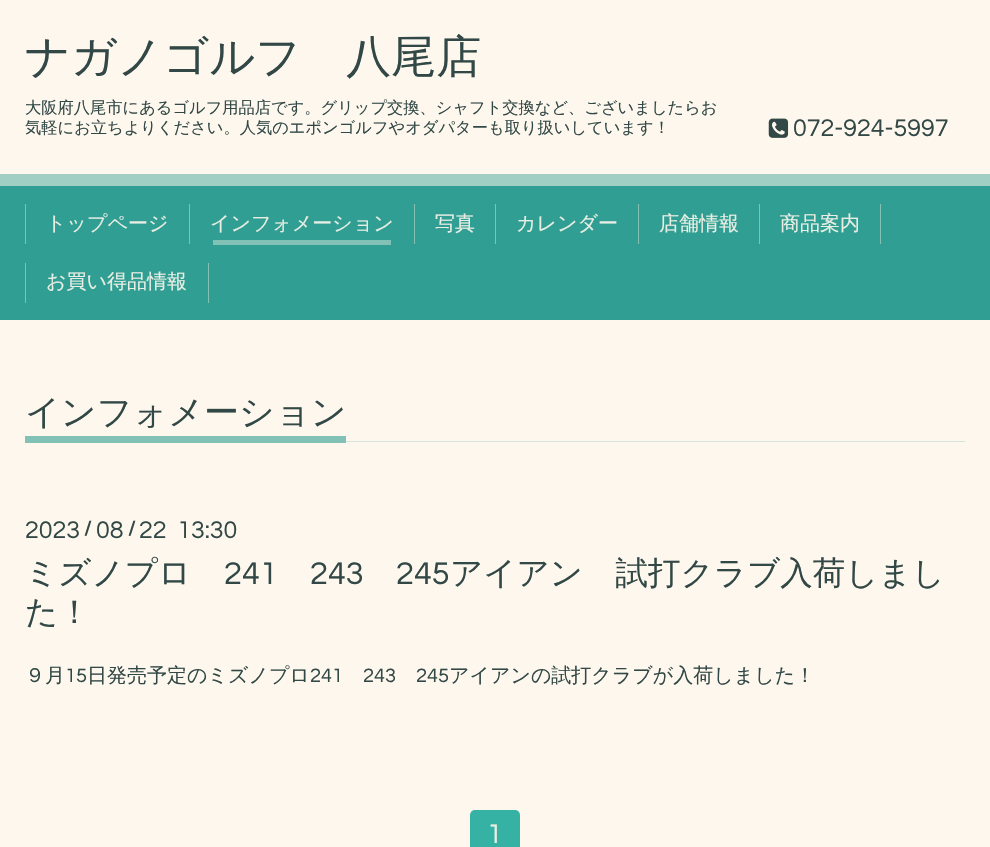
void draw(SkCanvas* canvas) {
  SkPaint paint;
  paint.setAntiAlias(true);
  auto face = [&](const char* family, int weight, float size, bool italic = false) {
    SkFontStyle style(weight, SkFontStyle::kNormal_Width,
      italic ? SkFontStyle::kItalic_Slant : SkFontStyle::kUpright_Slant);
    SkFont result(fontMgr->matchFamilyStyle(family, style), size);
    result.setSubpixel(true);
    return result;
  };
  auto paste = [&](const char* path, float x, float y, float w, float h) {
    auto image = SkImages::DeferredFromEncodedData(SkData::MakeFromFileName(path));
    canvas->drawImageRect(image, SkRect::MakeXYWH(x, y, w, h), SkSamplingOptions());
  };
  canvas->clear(0xfffdf7ed);
  paste("img/1.png", 768, 118, 21, 20);
  {
    const struct { float x, y, w, h; SkColor color; } items[] = {
      {0, 174, 990, 12, 0xffa1cfc4},
      {0, 186, 990, 134, 0xff309e92},
      {189, 204, 1, 40, 0xff82c2b6},
      {25, 204, 1, 40, 0xff82c2b6},
      {414, 204, 1, 40, 0xff82c2b6},
      {213, 240, 178, 5, 0xff82c2b6},
      {495, 204, 1, 40, 0xff82c2b6},
      {638, 204, 1, 40, 0xff82c2b6},
      {759, 204, 1, 40, 0xff82c2b6},
      {880, 204, 1, 40, 0xff82c2b6},
      {208, 263, 1, 40, 0xff82c2b6},
      {25, 263, 1, 40, 0xff82c2b6},
      {346, 441, 619, 1, 0xffd4e5db},
      {25, 436, 321, 7, 0xff82c2b6},
    };
    for (auto [x, y, w, h, color] : items) {
      paint.setColor(color);
      canvas->drawRect(SkRect::MakeXYWH(x, y, w, h), paint);
    }
  }
  paint.setColor(0xff36b2a4);
  canvas->drawRoundRect(SkRect::MakeXYWH(470, 810, 50, 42), 5, 5, paint);
  auto f0 = face("WenQuanYi Zen Hei", 500, 45);
  paint.setColor(0xff324846);
  canvas->drawString("ナガノゴルフ　八尾店", 25, 72, f0, paint);
  auto f1 = face("WenQuanYi Zen Hei", 500, 16.25f);
  canvas->drawString("大阪府八尾市にあるゴルフ用品店です。グリップ交換、シャフト交換など、ございましたらお", 25, 113, f1, paint);
  canvas->drawString("気軽にお立ちよりください。人気のエポンゴルフやオダパターも取り扱いしています！", 25, 133, f1, paint);
  auto f2 = face("Questrial", 400, 25);
  canvas->drawString("072-924-5997", 793, 136, f2, paint);
  auto f3 = face("WenQuanYi Zen Hei", 500, 20);
  paint.setColor(0xffe9eee4);
  {
    const struct { const char* s; float x, y; } items[] = {
      {"トップページ", 46, 230},
      {"インフォメーション", 210, 230},
      {"写真", 435, 230},
      {"カレンダー", 516, 230},
      {"店舗情報", 659, 230},
      {"商品案内", 780, 230},
      {"お買い得品情報", 46, 288},
    };
    for (auto [s, x, y] : items) {
      canvas->drawString(s, x, y, f3, paint);
    }
  }
  auto f4 = face("WenQuanYi Zen Hei", 500, 35);
  paint.setColor(0xff324846);
  canvas->drawString("インフォメーション", 25, 424, f4, paint);
  canvas->drawString("2023", 25, 538, f2, paint);
  auto f5 = face("Questrial", 700, 20);
  canvas->drawString("/", 84, 535, f5, paint);
  canvas->drawString("08", 96, 538, f2, paint);
  canvas->drawString("/", 128, 535, f5, paint);
  canvas->drawString("22  13:30", 139, 538, f2, paint);
  auto f6 = face("WenQuanYi Zen Hei", 500, 32.5f);
  canvas->drawString("ミズノプロ", 25, 584, f6, paint);
  auto f7 = face("Questrial", 400, 32.5f);
  {
    const struct { const char* s; float x, y; } items[] = {
      {"241", 224, 584},
      {"243", 310, 584},
      {"245", 396, 584},
    };
    for (auto [s, x, y] : items) {
      canvas->drawString(s, x, y, f7, paint);
    }
  }
  canvas->drawString("アイアン　試打クラブ入荷しまし", 450, 584, f6, paint);
  canvas->drawString("た！", 25, 623, f6, paint);
  canvas->drawString("９月", 25, 682, f3, paint);
  auto f8 = face("Questrial", 400, 20);
  canvas->drawString("15", 65, 682, f8, paint);
  canvas->drawString("日発売予定のミズノプロ", 87, 682, f3, paint);
  {
    const struct { const char* s; float x, y; } items[] = {
      {"241", 310, 682},
      {"243", 363, 682},
      {"245", 416, 682},
    };
    for (auto [s, x, y] : items) {
      canvas->drawString(s, x, y, f8, paint);
    }
  }
  canvas->drawString("アイアンの試打クラブが入荷しました！", 449, 682, f3, paint);
  auto f9 = face("Questrial", 400, 28);
  paint.setColor(0xffe9eee4);
  canvas->drawString("1", 487, 843, f9, paint);
}
